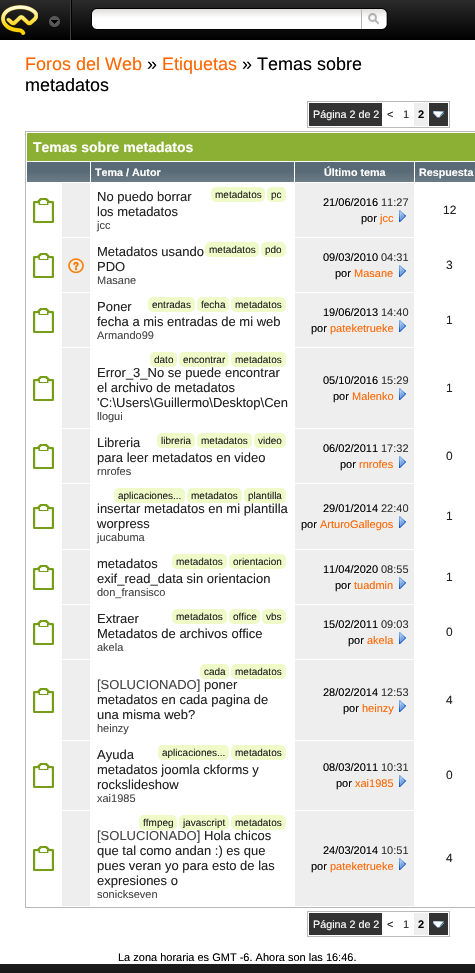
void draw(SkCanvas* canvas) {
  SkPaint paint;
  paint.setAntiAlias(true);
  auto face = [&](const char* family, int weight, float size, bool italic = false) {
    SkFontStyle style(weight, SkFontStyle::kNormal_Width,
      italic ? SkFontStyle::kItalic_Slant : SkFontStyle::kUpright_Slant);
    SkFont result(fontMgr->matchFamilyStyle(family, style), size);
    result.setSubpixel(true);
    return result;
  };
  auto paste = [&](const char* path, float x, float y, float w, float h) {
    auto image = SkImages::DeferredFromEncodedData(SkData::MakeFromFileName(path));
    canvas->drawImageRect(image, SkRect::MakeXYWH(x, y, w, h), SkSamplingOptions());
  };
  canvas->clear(0xffffffff);
  {
    const SkColor colors[] = {0xff2b2b2b, 0xff000000};
    const float stops[] = {0, 1};
    const SkPoint ends[] = {{0, 0}, {0, 40}};
    paint.setShader(SkGradientShader::MakeLinear(ends, colors, stops, 2, SkTileMode::kClamp));
    paint.setAlpha(255);
  }
  canvas->drawRect(SkRect::MakeXYWH(0, 0, 475, 40), paint);
  paint.setShader(nullptr);
  paint.setColor(0xff000000);
  canvas->drawRect(SkRect::MakeXYWH(71, 0, 1, 40), paint);
  paint.setColor(0xff3f3f3f);
  canvas->drawRect(SkRect::MakeXYWH(70, 0, 1, 40), paint);
  paste("img/1.png", 1, 5, 59, 30);
  paste("img/2.png", 91, 8, 270, 22);
  paste("img/3.png", 361, 8, 27, 22);
  paint.setStroke(true);
  paint.setStrokeWidth(1);
  paint.setColor(0xffb9b9b9);
  canvas->drawRect(SkRect::MakeXYWH(307.5f, 101.5f, 142, 26), paint);
  paint.setStroke(false);
  {
    const struct { float x, y, w, h; SkColor color; } items[] = {
      {309, 103, 73, 23, 0xff333333},
      {414, 103, 14, 23, 0xffeeeeee},
      {429, 103, 19, 23, 0xff333333},
    };
    for (auto [x, y, w, h, color] : items) {
      paint.setColor(color);
      canvas->drawRect(SkRect::MakeXYWH(x, y, w, h), paint);
    }
  }
  paste("img/4.png", 433, 111, 11, 7);
  paint.setStroke(true);
  paint.setColor(0xffb9b9b9);
  canvas->drawRect(SkRect::MakeXYWH(25.5f, 131.5f, 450, 776), paint);
  paint.setStroke(false);
  paint.setColor(0xff8bb033);
  canvas->drawRect(SkRect::MakeXYWH(27, 133, 448, 28), paint);
  paste("img/5.png", 27, 162, 63, 20);
  paste("img/6.png", 91, 162, 203, 20);
  paste("img/7.png", 295, 162, 119, 20);
  paste("img/8.png", 415, 162, 60, 20);
  paste("img/9.png", 33, 198, 21, 25);
  paint.setColor(0xffeeeeee);
  canvas->drawRect(SkRect::MakeXYWH(62, 183, 28, 54), paint);
  paint.setColor(0xffeefbc9);
  canvas->drawRoundRect(SkRect::MakeXYWH(211, 187, 54, 15), 5, 5, paint);
  canvas->drawRoundRect(SkRect::MakeXYWH(267, 187, 19, 15), 5, 5, paint);
  paint.setColor(0xffeeeeee);
  canvas->drawRect(SkRect::MakeXYWH(295, 183, 119, 54), paint);
  paste("img/10.png", 399, 210, 7, 12);
  paste("img/9.png", 33, 253, 21, 25);
  canvas->drawRect(SkRect::MakeXYWH(62, 238, 28, 54), paint);
  paste("img/11.png", 68, 258, 16, 15);
  paint.setColor(0xffeefbc9);
  canvas->drawRoundRect(SkRect::MakeXYWH(205, 242, 54, 15), 5, 5, paint);
  canvas->drawRoundRect(SkRect::MakeXYWH(261, 242, 25, 15), 5, 5, paint);
  paint.setColor(0xffeeeeee);
  canvas->drawRect(SkRect::MakeXYWH(295, 238, 119, 54), paint);
  paste("img/10.png", 399, 265, 7, 12);
  paste("img/9.png", 33, 308, 21, 25);
  canvas->drawRect(SkRect::MakeXYWH(62, 293, 28, 54), paint);
  paint.setColor(0xffeefbc9);
  canvas->drawRoundRect(SkRect::MakeXYWH(148, 297, 47, 15), 5, 5, paint);
  canvas->drawRoundRect(SkRect::MakeXYWH(197, 297, 32, 15), 5, 5, paint);
  canvas->drawRoundRect(SkRect::MakeXYWH(231, 297, 55, 15), 5, 5, paint);
  paint.setColor(0xffeeeeee);
  canvas->drawRect(SkRect::MakeXYWH(295, 293, 119, 54), paint);
  paste("img/10.png", 399, 320, 7, 12);
  paste("img/9.png", 33, 376, 21, 25);
  canvas->drawRect(SkRect::MakeXYWH(62, 348, 28, 80), paint);
  paint.setColor(0xffeefbc9);
  canvas->drawRoundRect(SkRect::MakeXYWH(150, 352, 27, 15), 5, 5, paint);
  canvas->drawRoundRect(SkRect::MakeXYWH(179, 352, 50, 15), 5, 5, paint);
  canvas->drawRoundRect(SkRect::MakeXYWH(231, 352, 55, 15), 5, 5, paint);
  paint.setColor(0xffeeeeee);
  canvas->drawRect(SkRect::MakeXYWH(295, 348, 119, 80), paint);
  paste("img/10.png", 399, 388, 7, 12);
  paste("img/9.png", 33, 444, 21, 25);
  canvas->drawRect(SkRect::MakeXYWH(62, 429, 28, 54), paint);
  paint.setColor(0xffeefbc9);
  canvas->drawRoundRect(SkRect::MakeXYWH(157, 433, 38, 15), 5, 5, paint);
  canvas->drawRoundRect(SkRect::MakeXYWH(197, 433, 55, 15), 5, 5, paint);
  canvas->drawRoundRect(SkRect::MakeXYWH(254, 433, 32, 15), 5, 5, paint);
  paint.setColor(0xffeeeeee);
  canvas->drawRect(SkRect::MakeXYWH(295, 429, 119, 54), paint);
  paste("img/10.png", 399, 456, 7, 12);
  paste("img/9.png", 33, 504, 21, 25);
  canvas->drawRect(SkRect::MakeXYWH(62, 484, 28, 65), paint);
  paint.setColor(0xffeefbc9);
  canvas->drawRoundRect(SkRect::MakeXYWH(114, 488, 71, 15), 5, 5, paint);
  canvas->drawRoundRect(SkRect::MakeXYWH(187, 488, 55, 15), 5, 5, paint);
  canvas->drawRoundRect(SkRect::MakeXYWH(244, 488, 42, 15), 5, 5, paint);
  paint.setColor(0xffeeeeee);
  canvas->drawRect(SkRect::MakeXYWH(295, 484, 119, 65), paint);
  paste("img/10.png", 399, 516, 7, 12);
  paste("img/9.png", 33, 565, 21, 25);
  canvas->drawRect(SkRect::MakeXYWH(62, 550, 28, 54), paint);
  paint.setColor(0xffeefbc9);
  canvas->drawRoundRect(SkRect::MakeXYWH(172, 554, 55, 15), 5, 5, paint);
  canvas->drawRoundRect(SkRect::MakeXYWH(229, 554, 57, 15), 5, 5, paint);
  paint.setColor(0xffeeeeee);
  canvas->drawRect(SkRect::MakeXYWH(295, 550, 119, 54), paint);
  paste("img/10.png", 399, 577, 7, 12);
  paste("img/9.png", 33, 620, 21, 25);
  canvas->drawRect(SkRect::MakeXYWH(62, 605, 28, 54), paint);
  paint.setColor(0xffeefbc9);
  canvas->drawRoundRect(SkRect::MakeXYWH(172, 609, 55, 15), 5, 5, paint);
  canvas->drawRoundRect(SkRect::MakeXYWH(229, 609, 31, 15), 5, 5, paint);
  canvas->drawRoundRect(SkRect::MakeXYWH(262, 609, 24, 15), 5, 5, paint);
  paint.setColor(0xffeeeeee);
  canvas->drawRect(SkRect::MakeXYWH(295, 605, 119, 54), paint);
  paste("img/10.png", 399, 632, 7, 12);
  paste("img/9.png", 33, 688, 21, 25);
  canvas->drawRect(SkRect::MakeXYWH(62, 660, 28, 80), paint);
  paint.setColor(0xffeefbc9);
  canvas->drawRoundRect(SkRect::MakeXYWH(200, 664, 29, 15), 5, 5, paint);
  canvas->drawRoundRect(SkRect::MakeXYWH(231, 664, 55, 15), 5, 5, paint);
  paint.setColor(0xffeeeeee);
  canvas->drawRect(SkRect::MakeXYWH(295, 660, 119, 80), paint);
  paste("img/10.png", 399, 700, 7, 12);
  paste("img/9.png", 33, 763, 21, 25);
  canvas->drawRect(SkRect::MakeXYWH(62, 741, 28, 69), paint);
  paint.setColor(0xffeefbc9);
  canvas->drawRoundRect(SkRect::MakeXYWH(158, 745, 71, 15), 5, 5, paint);
  canvas->drawRoundRect(SkRect::MakeXYWH(231, 745, 55, 15), 5, 5, paint);
  paint.setColor(0xffeeeeee);
  canvas->drawRect(SkRect::MakeXYWH(295, 741, 119, 69), paint);
  paste("img/10.png", 399, 775, 7, 12);
  paste("img/9.png", 33, 846, 21, 25);
  canvas->drawRect(SkRect::MakeXYWH(62, 811, 28, 95), paint);
  paint.setColor(0xffeefbc9);
  canvas->drawRoundRect(SkRect::MakeXYWH(139, 815, 38, 15), 5, 5, paint);
  canvas->drawRoundRect(SkRect::MakeXYWH(179, 815, 50, 15), 5, 5, paint);
  canvas->drawRoundRect(SkRect::MakeXYWH(231, 815, 55, 15), 5, 5, paint);
  paint.setColor(0xffeeeeee);
  canvas->drawRect(SkRect::MakeXYWH(295, 811, 119, 95), paint);
  paste("img/10.png", 399, 858, 7, 12);
  paint.setStroke(true);
  paint.setColor(0xffb9b9b9);
  canvas->drawRect(SkRect::MakeXYWH(307.5f, 911.5f, 142, 25), paint);
  paint.setStroke(false);
  {
    const struct { float x, y, w, h; SkColor color; } items[] = {
      {309, 913, 73, 22, 0xff333333},
      {414, 913, 14, 22, 0xffeeeeee},
      {429, 913, 19, 22, 0xff333333},
    };
    for (auto [x, y, w, h, color] : items) {
      paint.setColor(color);
      canvas->drawRect(SkRect::MakeXYWH(x, y, w, h), paint);
    }
  }
  paste("img/4.png", 433, 921, 11, 7);
  {
    const SkColor colors[] = {0xff1d1c1c, 0xff000000};
    const float stops[] = {0, 1};
    const SkPoint ends[] = {{0, 964}, {0, 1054}};
    paint.setShader(SkGradientShader::MakeLinear(ends, colors, stops, 2, SkTileMode::kClamp));
    paint.setAlpha(255);
  }
  canvas->drawRect(SkRect::MakeXYWH(0, 964, 475, 9), paint);
  auto f0 = face("Liberation Sans", 400, 18);
  paint.setShader(nullptr);
  paint.setColor(0xffff6600);
  canvas->drawString("Foros del Web", 25, 70, f0, paint);
  paint.setColor(0xff000000);
  canvas->drawString("»", 147, 70, f0, paint);
  paint.setColor(0xffff6600);
  canvas->drawString("Etiquetas", 162, 70, f0, paint);
  paint.setColor(0xff000000);
  canvas->drawString("» Temas sobre", 242, 70, f0, paint);
  canvas->drawString("metadatos", 25, 91, f0, paint);
  auto f1 = face("Liberation Sans", 400, 10.75f);
  paint.setColor(0xffffffff);
  canvas->drawString("Página 2 de 2", 313, 118, f1, paint);
  auto f2 = face("Liberation Sans", 400, 11);
  paint.setColor(0xff222222);
  canvas->drawString("<", 387, 118, f2, paint);
  canvas->drawString("1", 403, 118, f2, paint);
  auto f3 = face("Liberation Sans", 700, 11);
  paint.setColor(0xff000000);
  canvas->drawString("2", 418, 118, f3, paint);
  auto f4 = face("Liberation Sans", 700, 14);
  paint.setColor(0xffffffff);
  canvas->drawString("Temas sobre metadatos", 33, 152, f4, paint);
  auto f5 = face("Liberation Sans", 700, 10.75f);
  {
    const struct { const char* s; float x, y; } items[] = {
      {"Tema / Autor", 95, 176},
      {"Último tema", 324, 176},
      {"Respuesta", 419, 176},
    };
    for (auto [s, x, y] : items) {
      canvas->drawString(s, x, y, f5, paint);
    }
  }
  auto f6 = face("Liberation Sans", 400, 13);
  paint.setColor(0xff222222);
  canvas->drawString("No puedo borrar", 97, 201, f6, paint);
  auto f7 = face("Liberation Sans", 400, 10);
  canvas->drawString("metadatos", 215, 198, f7, paint);
  canvas->drawString("pc", 271, 198, f7, paint);
  canvas->drawString("los metadatos", 97, 216, f6, paint);
  paint.setColor(0xff444444);
  canvas->drawString("jcc", 97, 229, f2, paint);
  paint.setColor(0xff000000);
  canvas->drawString("21/06/2016", 323, 206, f2, paint);
  paint.setColor(0xff333333);
  canvas->drawString("11:27", 381, 206, f2, paint);
  paint.setColor(0xff000000);
  canvas->drawString("por", 361, 222, f2, paint);
  paint.setColor(0xffff6600);
  canvas->drawString("jcc", 380, 222, f2, paint);
  auto f8 = face("Liberation Sans", 400, 12);
  paint.setColor(0xff222222);
  canvas->drawString("12", 443, 214, f8, paint);
  canvas->drawString("Metadatos usando", 97, 256, f6, paint);
  canvas->drawString("metadatos", 209, 253, f7, paint);
  canvas->drawString("pdo", 265, 253, f7, paint);
  canvas->drawString("PDO", 97, 271, f6, paint);
  paint.setColor(0xff444444);
  canvas->drawString("Masane", 97, 284, f2, paint);
  paint.setColor(0xff000000);
  canvas->drawString("09/03/2010", 323, 261, f2, paint);
  paint.setColor(0xff333333);
  canvas->drawString("04:31", 381, 261, f2, paint);
  paint.setColor(0xff000000);
  canvas->drawString("por", 335, 277, f2, paint);
  paint.setColor(0xffff6600);
  canvas->drawString("Masane", 354, 277, f2, paint);
  paint.setColor(0xff222222);
  canvas->drawString("3", 446, 269, f8, paint);
  canvas->drawString("Poner", 97, 311, f6, paint);
  {
    const struct { const char* s; float x, y; } items[] = {
      {"entradas", 152, 308},
      {"fecha", 201, 308},
      {"metadatos", 235, 308},
    };
    for (auto [s, x, y] : items) {
      canvas->drawString(s, x, y, f7, paint);
    }
  }
  canvas->drawString("fecha a mis entradas de mi web", 97, 326, f6, paint);
  paint.setColor(0xff444444);
  canvas->drawString("Armando99", 97, 339, f2, paint);
  paint.setColor(0xff000000);
  canvas->drawString("19/06/2013", 323, 316, f2, paint);
  paint.setColor(0xff333333);
  canvas->drawString("14:40", 381, 316, f2, paint);
  paint.setColor(0xff000000);
  canvas->drawString("por", 311, 332, f2, paint);
  paint.setColor(0xffff6600);
  canvas->drawString("pateketrueke", 330, 332, f2, paint);
  paint.setColor(0xff222222);
  canvas->drawString("1", 446, 324, f8, paint);
  {
    const struct { const char* s; float x, y; } items[] = {
      {"dato", 154, 363},
      {"encontrar", 183, 363},
      {"metadatos", 235, 363},
    };
    for (auto [s, x, y] : items) {
      canvas->drawString(s, x, y, f7, paint);
    }
  }
  {
    const struct { const char* s; float x, y; } items[] = {
      {"Error_3_No se puede encontrar", 97, 377},
      {"el archivo de metadatos", 97, 392},
      {"'C:\\Users\\Guillermo\\Desktop\\Cen", 97, 407},
    };
    for (auto [s, x, y] : items) {
      canvas->drawString(s, x, y, f6, paint);
    }
  }
  paint.setColor(0xff444444);
  canvas->drawString("llogui", 97, 420, f2, paint);
  paint.setColor(0xff000000);
  canvas->drawString("05/10/2016", 323, 384, f2, paint);
  paint.setColor(0xff333333);
  canvas->drawString("15:29", 381, 384, f2, paint);
  paint.setColor(0xff000000);
  canvas->drawString("por", 333, 400, f2, paint);
  paint.setColor(0xffff6600);
  canvas->drawString("Malenko", 352, 400, f2, paint);
  paint.setColor(0xff222222);
  canvas->drawString("1", 446, 392, f8, paint);
  canvas->drawString("Libreria", 97, 447, f6, paint);
  {
    const struct { const char* s; float x, y; } items[] = {
      {"libreria", 161, 444},
      {"metadatos", 201, 444},
      {"video", 258, 444},
    };
    for (auto [s, x, y] : items) {
      canvas->drawString(s, x, y, f7, paint);
    }
  }
  canvas->drawString("para leer metadatos en video", 97, 462, f6, paint);
  paint.setColor(0xff444444);
  canvas->drawString("rnrofes", 97, 475, f2, paint);
  paint.setColor(0xff000000);
  canvas->drawString("06/02/2011", 323, 452, f2, paint);
  paint.setColor(0xff333333);
  canvas->drawString("17:32", 381, 452, f2, paint);
  paint.setColor(0xff000000);
  canvas->drawString("por", 340, 468, f2, paint);
  paint.setColor(0xffff6600);
  canvas->drawString("rnrofes", 359, 468, f2, paint);
  paint.setColor(0xff222222);
  canvas->drawString("0", 446, 460, f8, paint);
  {
    const struct { const char* s; float x, y; } items[] = {
      {"aplicaciones...", 118, 499},
      {"metadatos", 191, 499},
      {"plantilla", 248, 499},
    };
    for (auto [s, x, y] : items) {
      canvas->drawString(s, x, y, f7, paint);
    }
  }
  canvas->drawString("insertar metadatos en mi plantilla", 97, 513, f6, paint);
  canvas->drawString("worpress", 97, 528, f6, paint);
  paint.setColor(0xff444444);
  canvas->drawString("jucabuma", 97, 541, f2, paint);
  paint.setColor(0xff000000);
  canvas->drawString("29/01/2014", 323, 512, f2, paint);
  paint.setColor(0xff333333);
  canvas->drawString("22:40", 381, 512, f2, paint);
  paint.setColor(0xff000000);
  canvas->drawString("por", 301, 528, f2, paint);
  paint.setColor(0xffff6600);
  canvas->drawString("ArturoGallegos", 320, 528, f2, paint);
  paint.setColor(0xff222222);
  canvas->drawString("1", 446, 520, f8, paint);
  canvas->drawString("metadatos", 97, 568, f6, paint);
  canvas->drawString("metadatos", 176, 565, f7, paint);
  canvas->drawString("orientacion", 233, 565, f7, paint);
  canvas->drawString("exif_read_data sin orientacion", 97, 583, f6, paint);
  paint.setColor(0xff444444);
  canvas->drawString("don_fransisco", 97, 596, f2, paint);
  paint.setColor(0xff000000);
  canvas->drawString("11/04/2020", 323, 573, f2, paint);
  paint.setColor(0xff333333);
  canvas->drawString("08:55", 381, 573, f2, paint);
  paint.setColor(0xff000000);
  canvas->drawString("por", 335, 589, f2, paint);
  paint.setColor(0xffff6600);
  canvas->drawString("tuadmin", 354, 589, f2, paint);
  paint.setColor(0xff222222);
  canvas->drawString("1", 446, 581, f8, paint);
  canvas->drawString("Extraer", 97, 623, f6, paint);
  {
    const struct { const char* s; float x, y; } items[] = {
      {"metadatos", 176, 620},
      {"office", 233, 620},
      {"vbs", 266, 620},
    };
    for (auto [s, x, y] : items) {
      canvas->drawString(s, x, y, f7, paint);
    }
  }
  canvas->drawString("Metadatos de archivos office", 97, 638, f6, paint);
  paint.setColor(0xff444444);
  canvas->drawString("akela", 97, 651, f2, paint);
  paint.setColor(0xff000000);
  canvas->drawString("15/02/2011", 323, 628, f2, paint);
  paint.setColor(0xff333333);
  canvas->drawString("09:03", 381, 628, f2, paint);
  paint.setColor(0xff000000);
  canvas->drawString("por", 348, 644, f2, paint);
  paint.setColor(0xffff6600);
  canvas->drawString("akela", 367, 644, f2, paint);
  paint.setColor(0xff222222);
  canvas->drawString("0", 446, 636, f8, paint);
  canvas->drawString("cada", 204, 675, f7, paint);
  canvas->drawString("metadatos", 235, 675, f7, paint);
  paint.setColor(0xff444444);
  canvas->drawString("[SOLUCIONADO]", 97, 689, f6, paint);
  paint.setColor(0xff222222);
  {
    const struct { const char* s; float x, y; } items[] = {
      {"poner", 204, 689},
      {"metadatos en cada pagina de", 97, 704},
      {"una misma web?", 97, 719},
    };
    for (auto [s, x, y] : items) {
      canvas->drawString(s, x, y, f6, paint);
    }
  }
  paint.setColor(0xff444444);
  canvas->drawString("heinzy", 97, 732, f2, paint);
  paint.setColor(0xff000000);
  canvas->drawString("28/02/2014", 323, 696, f2, paint);
  paint.setColor(0xff333333);
  canvas->drawString("12:53", 381, 696, f2, paint);
  paint.setColor(0xff000000);
  canvas->drawString("por", 343, 712, f2, paint);
  paint.setColor(0xffff6600);
  canvas->drawString("heinzy", 362, 712, f2, paint);
  paint.setColor(0xff222222);
  canvas->drawString("4", 446, 704, f8, paint);
  canvas->drawString("Ayuda", 97, 759, f6, paint);
  canvas->drawString("aplicaciones...", 162, 756, f7, paint);
  canvas->drawString("metadatos", 235, 756, f7, paint);
  canvas->drawString("metadatos joomla ckforms y", 97, 774, f6, paint);
  canvas->drawString("rockslideshow", 97, 789, f6, paint);
  paint.setColor(0xff444444);
  canvas->drawString("xai1985", 97, 802, f2, paint);
  paint.setColor(0xff000000);
  canvas->drawString("08/03/2011", 323, 771, f2, paint);
  paint.setColor(0xff333333);
  canvas->drawString("10:31", 381, 771, f2, paint);
  paint.setColor(0xff000000);
  canvas->drawString("por", 336, 787, f2, paint);
  paint.setColor(0xffff6600);
  canvas->drawString("xai1985", 355, 787, f2, paint);
  paint.setColor(0xff222222);
  canvas->drawString("0", 446, 779, f8, paint);
  {
    const struct { const char* s; float x, y; } items[] = {
      {"ffmpeg", 143, 826},
      {"javascript", 183, 826},
      {"metadatos", 235, 826},
    };
    for (auto [s, x, y] : items) {
      canvas->drawString(s, x, y, f7, paint);
    }
  }
  paint.setColor(0xff444444);
  canvas->drawString("[SOLUCIONADO]", 97, 840, f6, paint);
  paint.setColor(0xff222222);
  {
    const struct { const char* s; float x, y; } items[] = {
      {"Hola chicos", 204, 840},
      {"que tal como andan :) es que", 97, 855},
      {"pues veran yo para esto de las", 97, 870},
      {"expresiones o", 97, 885},
    };
    for (auto [s, x, y] : items) {
      canvas->drawString(s, x, y, f6, paint);
    }
  }
  paint.setColor(0xff444444);
  canvas->drawString("sonickseven", 97, 898, f2, paint);
  paint.setColor(0xff000000);
  canvas->drawString("24/03/2014", 323, 854, f2, paint);
  paint.setColor(0xff333333);
  canvas->drawString("10:51", 381, 854, f2, paint);
  paint.setColor(0xff000000);
  canvas->drawString("por", 311, 870, f2, paint);
  paint.setColor(0xffff6600);
  canvas->drawString("pateketrueke", 330, 870, f2, paint);
  paint.setColor(0xff222222);
  canvas->drawString("4", 446, 862, f8, paint);
  paint.setColor(0xffffffff);
  canvas->drawString("Página 2 de 2", 313, 928, f1, paint);
  paint.setColor(0xff222222);
  canvas->drawString("<", 387, 928, f2, paint);
  canvas->drawString("1", 403, 928, f2, paint);
  paint.setColor(0xff000000);
  canvas->drawString("2", 418, 928, f3, paint);
  canvas->drawString("La zona horaria es GMT -6. Ahora son las 16:46.", 118, 961, f2, paint);
}
